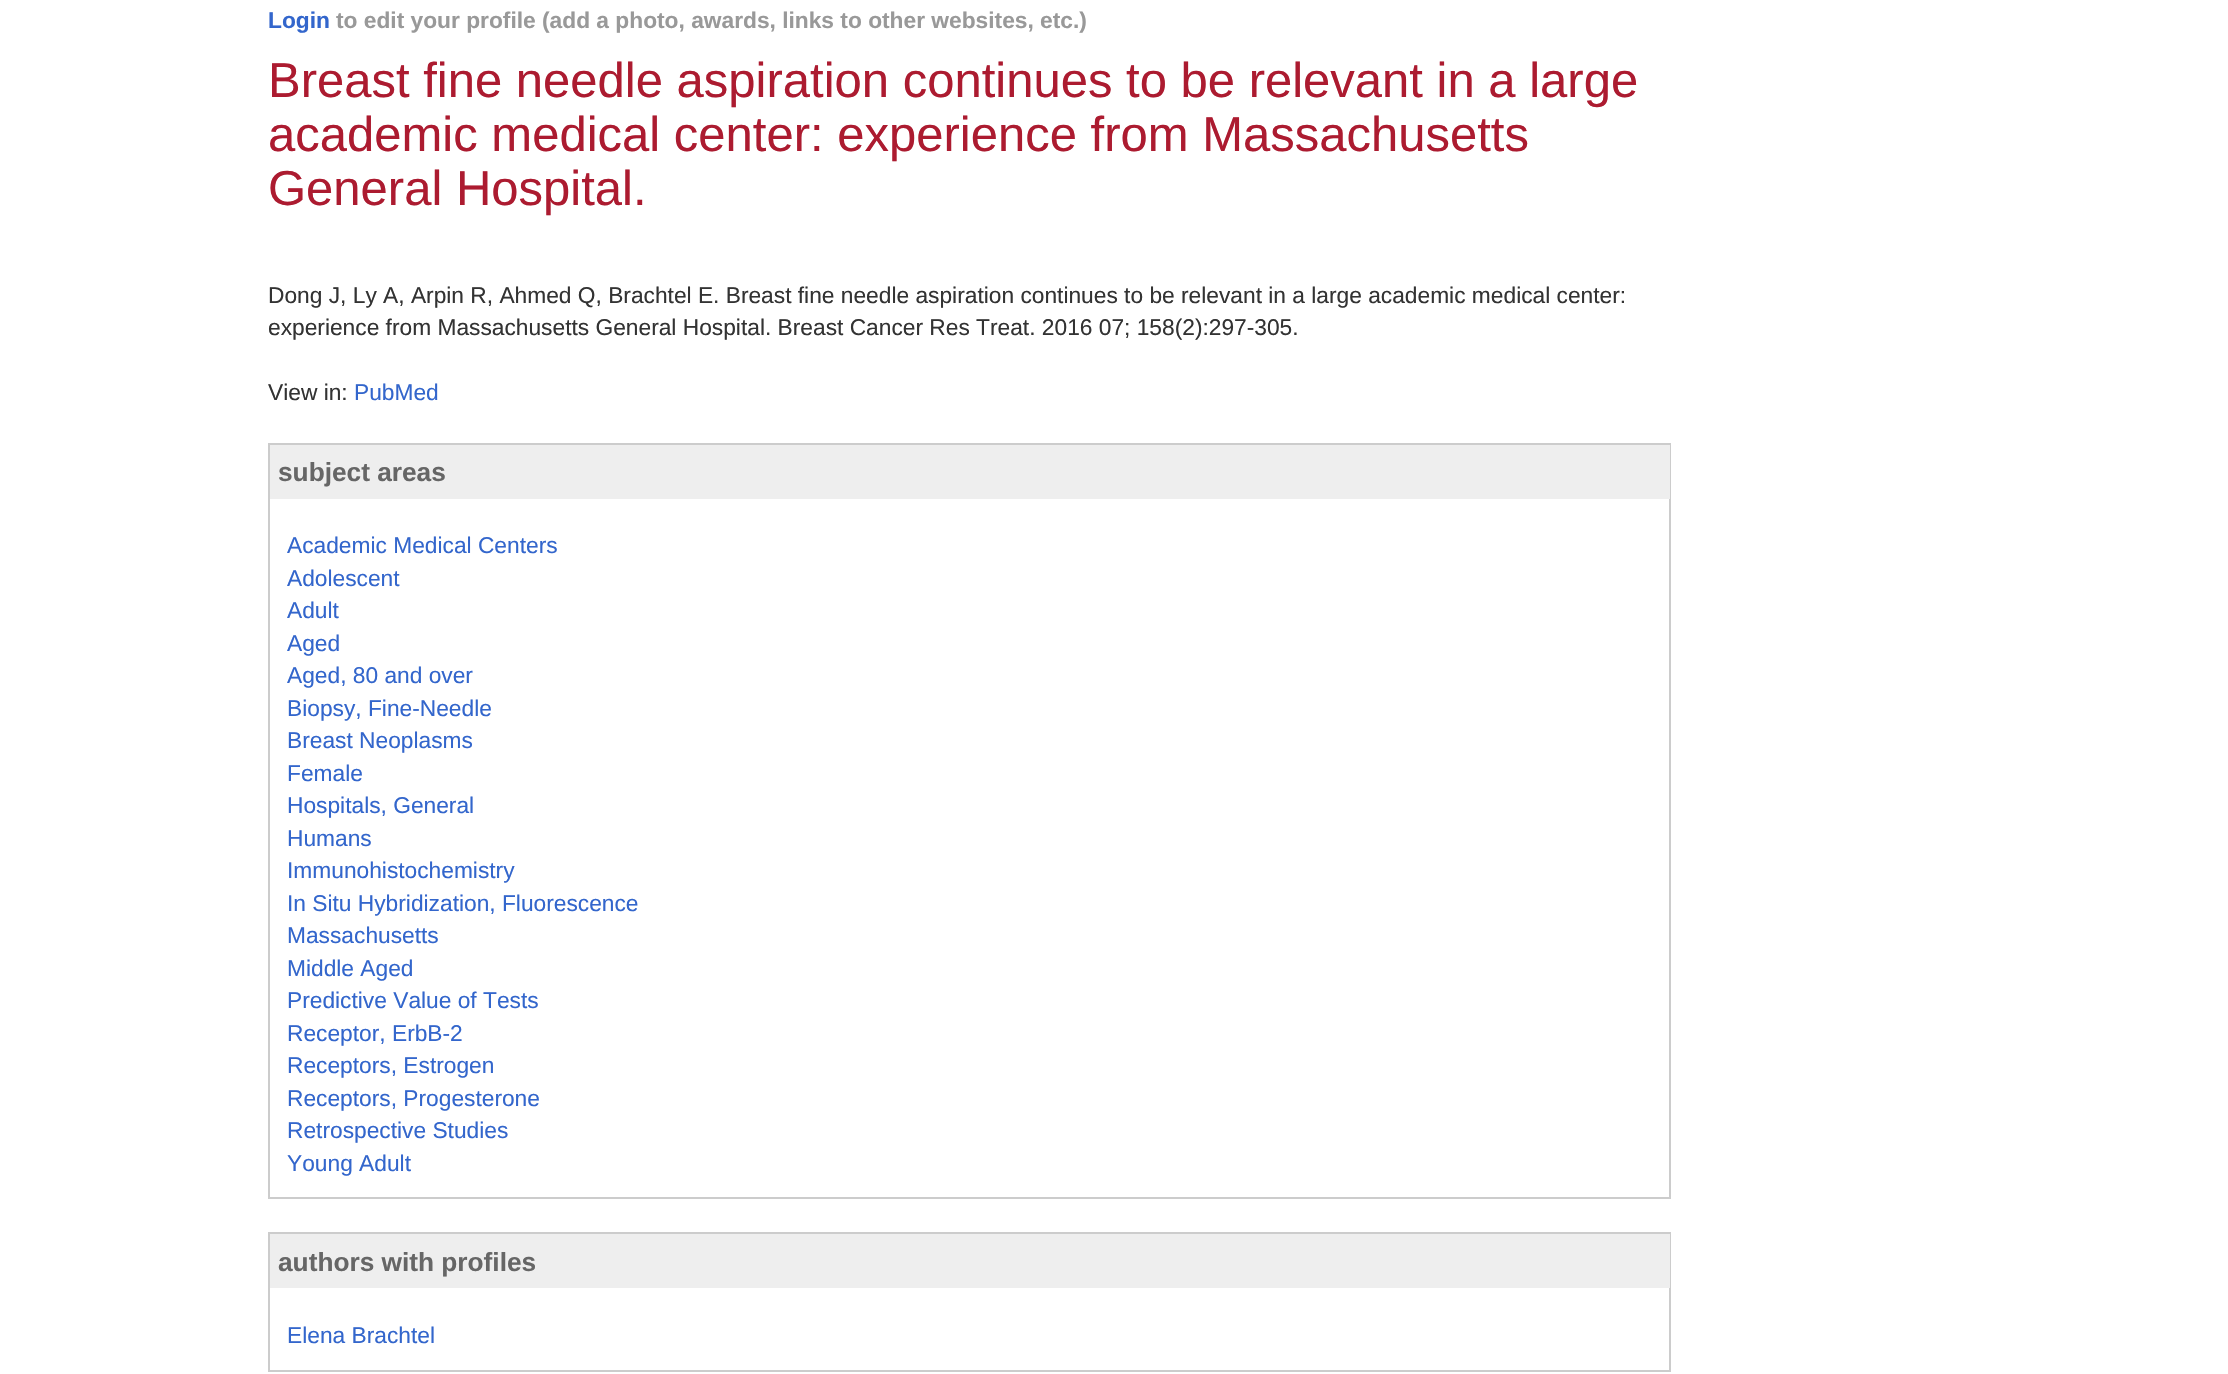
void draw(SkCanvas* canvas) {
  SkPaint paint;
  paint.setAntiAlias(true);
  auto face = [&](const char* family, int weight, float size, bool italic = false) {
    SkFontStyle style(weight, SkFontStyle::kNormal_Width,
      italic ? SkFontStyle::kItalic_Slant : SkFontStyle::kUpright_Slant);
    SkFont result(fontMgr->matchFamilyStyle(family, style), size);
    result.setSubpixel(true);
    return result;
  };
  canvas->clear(0xffffffff);
  paint.setStroke(true);
  paint.setStrokeWidth(2);
  paint.setColor(0xffcccccc);
  canvas->drawRect(SkRect::MakeXYWH(269, 444, 1401, 754), paint);
  paint.setStroke(false);
  paint.setColor(0xffeeeeee);
  canvas->drawRect(SkRect::MakeXYWH(270, 445, 1400, 54), paint);
  paint.setStroke(true);
  paint.setColor(0xffcccccc);
  canvas->drawRect(SkRect::MakeXYWH(269, 1233, 1401, 138), paint);
  paint.setStroke(false);
  paint.setColor(0xffeeeeee);
  canvas->drawRect(SkRect::MakeXYWH(270, 1234, 1400, 54), paint);
  auto f0 = face("Liberation Sans", 700, 22.75f);
  paint.setColor(0xff3366cc);
  canvas->drawString("Login", 268, 28, f0, paint);
  paint.setColor(0xff999999);
  canvas->drawString("to edit your profile (add a photo, awards, links to other websites, etc.)", 336, 28, f0, paint);
  auto f1 = face("Liberation Sans", 400, 49);
  paint.setColor(0xffac1b30);
  {
    const struct { const char* s; float x, y; } items[] = {
      {"Breast fine needle aspiration continues to be relevant in a large", 268, 97},
      {"academic medical center: experience from Massachusetts", 268, 151},
      {"General Hospital.", 268, 205},
    };
    for (auto [s, x, y] : items) {
      canvas->drawString(s, x, y, f1, paint);
    }
  }
  auto f2 = face("Liberation Sans", 400, 22.75f);
  paint.setColor(0xff333333);
  {
    const struct { const char* s; float x, y; } items[] = {
      {"Dong J, Ly A, Arpin R, Ahmed Q, Brachtel E. Breast fine needle aspiration continues to be relevant in a large academic medical center:", 268, 303},
      {"experience from Massachusetts General Hospital. Breast Cancer Res Treat. 2016 07; 158(2):297-305.", 268, 335},
      {"View in:", 268, 400},
    };
    for (auto [s, x, y] : items) {
      canvas->drawString(s, x, y, f2, paint);
    }
  }
  paint.setColor(0xff3366cc);
  canvas->drawString("PubMed", 354, 400, f2, paint);
  auto f3 = face("Liberation Sans", 700, 26.25f);
  paint.setColor(0xff666666);
  canvas->drawString("subject areas", 278, 481, f3, paint);
  paint.setColor(0xff3366cc);
  {
    const struct { const char* s; float x, y; } items[] = {
      {"Academic Medical Centers", 287, 553},
      {"Adolescent", 287, 586},
      {"Adult", 287, 618},
      {"Aged", 287, 651},
      {"Aged, 80 and over", 287, 683},
      {"Biopsy, Fine-Needle", 287, 716},
      {"Breast Neoplasms", 287, 748},
      {"Female", 287, 781},
      {"Hospitals, General", 287, 813},
      {"Humans", 287, 846},
      {"Immunohistochemistry", 287, 878},
      {"In Situ Hybridization, Fluorescence", 287, 911},
      {"Massachusetts", 287, 943},
      {"Middle Aged", 287, 976},
      {"Predictive Value of Tests", 287, 1008},
      {"Receptor, ErbB-2", 287, 1041},
      {"Receptors, Estrogen", 287, 1073},
      {"Receptors, Progesterone", 287, 1106},
      {"Retrospective Studies", 287, 1138},
      {"Young Adult", 287, 1171},
    };
    for (auto [s, x, y] : items) {
      canvas->drawString(s, x, y, f2, paint);
    }
  }
  paint.setColor(0xff666666);
  canvas->drawString("authors with profiles", 278, 1271, f3, paint);
  paint.setColor(0xff3366cc);
  canvas->drawString("Elena Brachtel", 287, 1343, f2, paint);
}
